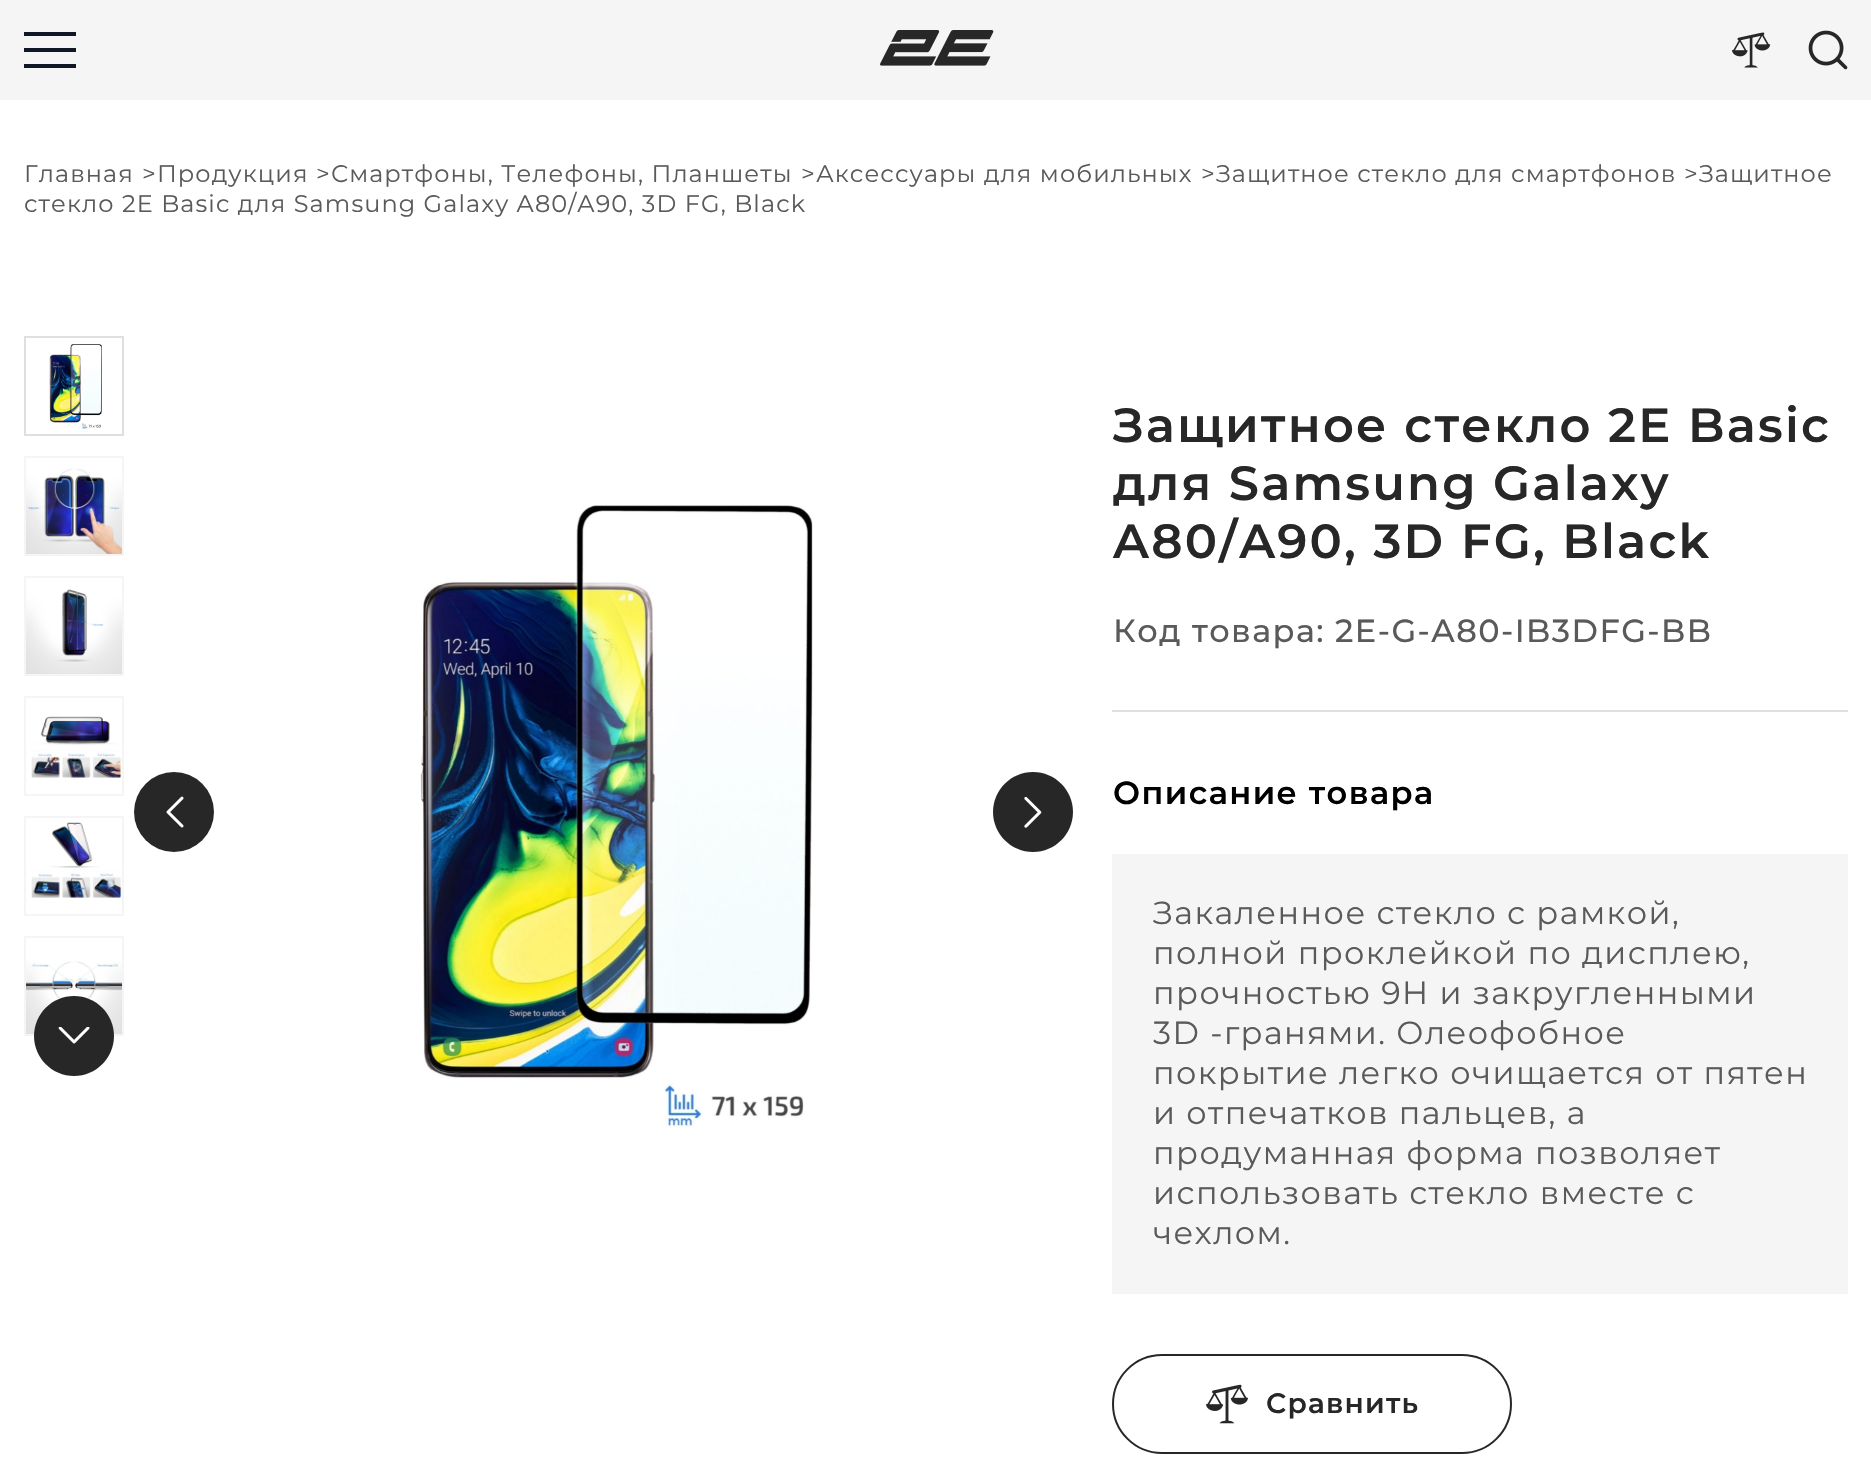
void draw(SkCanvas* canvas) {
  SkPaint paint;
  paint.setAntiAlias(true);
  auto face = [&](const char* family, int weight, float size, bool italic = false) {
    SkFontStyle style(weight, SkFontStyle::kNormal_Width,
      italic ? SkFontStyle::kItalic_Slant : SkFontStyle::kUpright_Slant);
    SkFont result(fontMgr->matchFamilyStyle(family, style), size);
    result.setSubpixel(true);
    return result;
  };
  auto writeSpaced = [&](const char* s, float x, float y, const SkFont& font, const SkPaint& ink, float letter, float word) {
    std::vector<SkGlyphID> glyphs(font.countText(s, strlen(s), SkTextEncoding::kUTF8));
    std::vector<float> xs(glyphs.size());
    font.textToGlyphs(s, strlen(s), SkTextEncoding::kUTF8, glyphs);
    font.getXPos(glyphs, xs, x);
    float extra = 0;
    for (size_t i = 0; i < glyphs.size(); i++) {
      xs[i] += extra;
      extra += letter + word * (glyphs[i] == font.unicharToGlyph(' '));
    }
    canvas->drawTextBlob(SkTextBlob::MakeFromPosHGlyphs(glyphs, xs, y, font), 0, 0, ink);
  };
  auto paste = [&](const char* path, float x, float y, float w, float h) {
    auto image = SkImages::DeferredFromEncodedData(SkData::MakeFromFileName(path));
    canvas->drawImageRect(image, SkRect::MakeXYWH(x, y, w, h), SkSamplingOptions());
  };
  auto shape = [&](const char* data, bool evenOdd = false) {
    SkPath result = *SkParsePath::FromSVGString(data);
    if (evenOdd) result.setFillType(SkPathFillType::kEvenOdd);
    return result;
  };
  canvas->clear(0xffffffff);
  {
    const struct { float x, y, w, h; SkColor color; } items[] = {
      {0, 0, 1871, 100, 0xfff5f5f5},
      {24, 48, 52, 4, 0xff101828},
      {24, 32, 52, 4, 0xff101828},
      {24, 64, 52, 4, 0xff101828},
    };
    for (auto [x, y, w, h, color] : items) {
      paint.setColor(color);
      canvas->drawRect(SkRect::MakeXYWH(x, y, w, h), paint);
    }
  }
  paste("img/1.png", 880, 30, 114, 36);
  paste("img/2.png", 1732, 32, 39, 36);
  paste("img/3.png", 1808, 30, 40, 40);
  paint.setStroke(true);
  paint.setStrokeWidth(2);
  paint.setColor(0xffdfdfdf);
  canvas->drawRect(SkRect::MakeXYWH(25, 337, 98, 98), paint);
  paste("img/4.png", 49, 344, 53, 85);
  paint.setColor(0xfff5f5f5);
  canvas->drawRect(SkRect::MakeXYWH(25, 457, 98, 98), paint);
  paste("img/5.png", 26, 468, 96, 86);
  canvas->drawRect(SkRect::MakeXYWH(25, 577, 98, 98), paint);
  paste("img/6.png", 26, 589, 96, 85);
  canvas->drawRect(SkRect::MakeXYWH(25, 697, 98, 98), paint);
  paste("img/7.png", 31, 716, 91, 62);
  canvas->drawRect(SkRect::MakeXYWH(25, 817, 98, 98), paint);
  paste("img/8.png", 31, 822, 91, 76);
  canvas->drawRect(SkRect::MakeXYWH(25, 937, 98, 98), paint);
  paste("img/9.png", 26, 961, 96, 73);
  paint.setStroke(false);
  paint.setColor(0xff272727);
  canvas->drawPath(shape("M34 1036C34 1014 52 996 74 996C96 996 114 1014 114 1036C114 1058 96 1076 74 1076C52 1076 34 1058 34 1036Z"), paint);
  paste("img/10.png", 58, 1027, 32, 17);
  canvas->drawCircle(174, 812, 40, paint);
  paste("img/11.png", 166, 796, 18, 32);
  paste("img/12.png", 420, 505, 393, 623);
  canvas->drawPath(shape("M1033 852C1011 852 993 834 993 812C993 790 1011 772 1033 772C1055 772 1073 790 1073 812C1073 834 1055 852 1033 852Z"), paint);
  paste("img/13.png", 1024, 796, 18, 32);
  paint.setColor(0xffdfdfdf);
  canvas->drawRect(SkRect::MakeXYWH(1112, 710, 736, 2), paint);
  paint.setColor(0xfff5f5f5);
  canvas->drawRect(SkRect::MakeXYWH(1112, 854, 736, 440), paint);
  paint.setStroke(true);
  paint.setColor(0xff272727);
  canvas->drawRoundRect(SkRect::MakeXYWH(1113, 1355, 398, 98), 49, 49, paint);
  paste("img/14.png", 1206, 1384, 42, 40);
  auto f0 = face("Montserrat", 400, 24);
  paint.setStroke(false);
  paint.setColor(0xff5a5a5a);
  {
    const struct { const char* s; float x, y; } items[] = {
      {"Главная", 24, 182},
      {">Продукция", 142, 182},
      {">Смартфоны, Телефоны, Планшеты", 316, 182},
      {">Аксессуары для мобильных", 801, 182},
      {">Защитное стекло для смартфонов", 1201, 182},
      {">Защитное", 1684, 182},
      {"стекло 2E Basic для Samsung Galaxy A80/A90, 3D FG, Black", 24, 212},
    };
    for (auto [s, x, y] : items) {
      writeSpaced(s, x, y, f0, paint, 1.08f, 0);
    }
  }
  auto f1 = face("Montserrat", 600, 48);
  paint.setColor(0xff272727);
  {
    const struct { const char* s; float x, y; } items[] = {
      {"Защитное стекло 2E Basic", 1113, 442},
      {"для Samsung Galaxy", 1113, 500},
      {"A80/A90, 3D FG, Black", 1113, 558},
    };
    for (auto [s, x, y] : items) {
      writeSpaced(s, x, y, f1, paint, 2.2f, 0);
    }
  }
  auto f2 = face("Montserrat", 500, 32);
  paint.setColor(0xff5a5a5a);
  writeSpaced("Код товара: 2E-G-A80-IB3DFG-BB", 1113, 642, f2, paint, 1.45f, 0);
  auto f3 = face("Montserrat", 600, 32);
  paint.setColor(0xff000000);
  writeSpaced("Описание товара", 1113, 804, f3, paint, 1.45f, 0);
  auto f4 = face("Montserrat", 400, 32);
  paint.setColor(0xff5a5a5a);
  {
    const struct { const char* s; float x, y; } items[] = {
      {"Закаленное стекло с рамкой,", 1153, 924},
      {"полной проклейкой по дисплею,", 1153, 964},
      {"прочностью 9H и закругленными", 1153, 1004},
      {"3D -гранями. Олеофобное", 1153, 1044},
      {"покрытие легко очищается от пятен", 1153, 1084},
      {"и отпечатков пальцев, а", 1153, 1124},
      {"продуманная форма позволяет", 1153, 1164},
      {"использовать стекло вместе с", 1153, 1204},
      {"чехлом.", 1153, 1244},
    };
    for (auto [s, x, y] : items) {
      writeSpaced(s, x, y, f4, paint, 1.45f, 0);
    }
  }
  auto f5 = face("Montserrat", 600, 28);
  paint.setColor(0xff272727);
  writeSpaced("Сравнить", 1266, 1413, f5, paint, 1.25f, 0);
}
